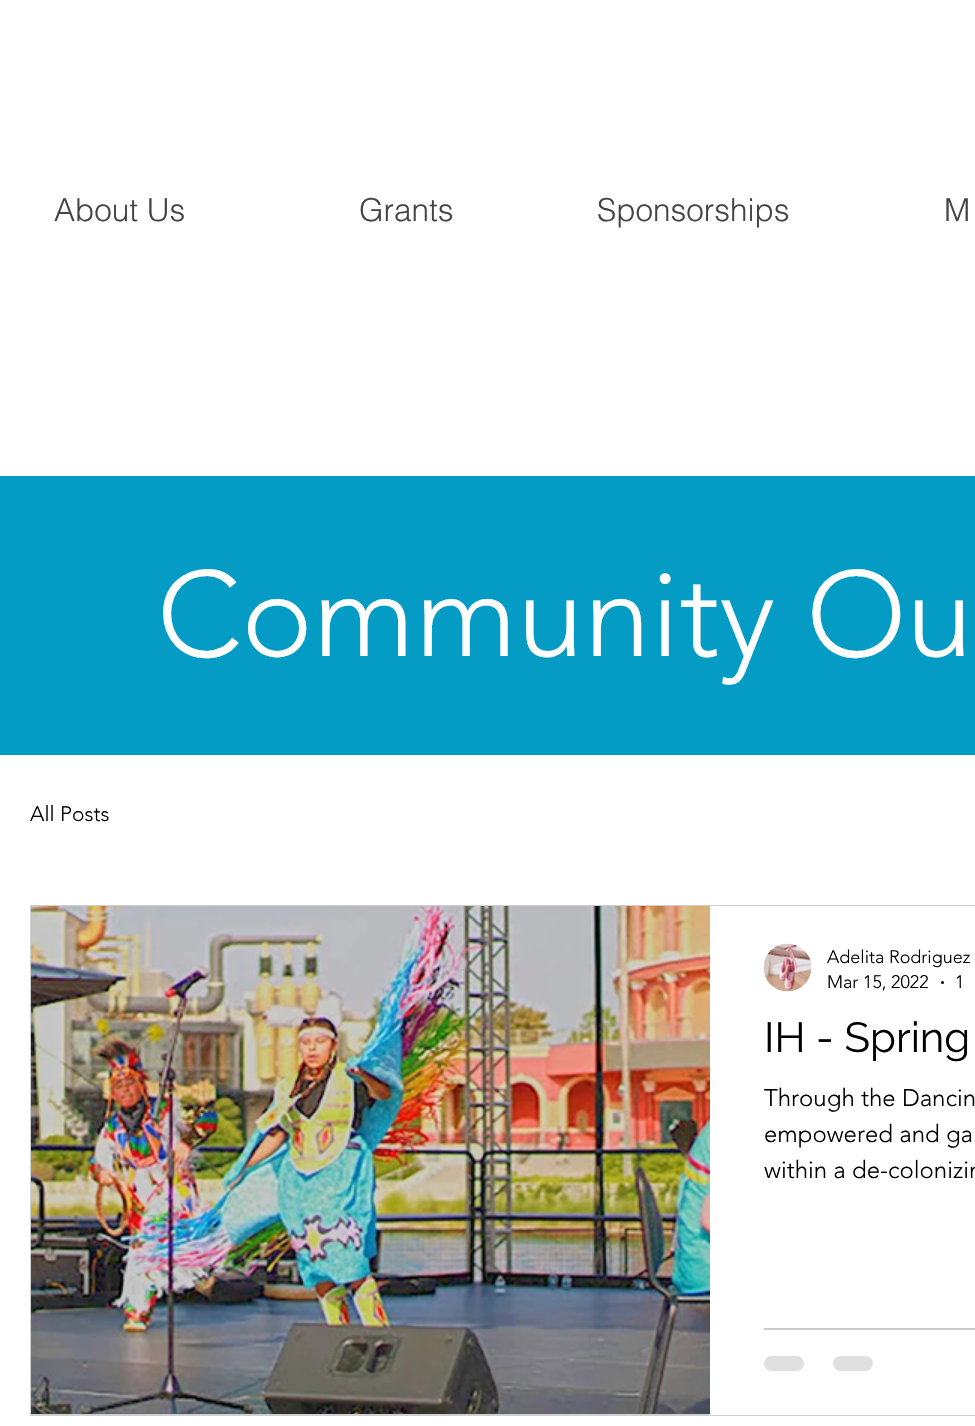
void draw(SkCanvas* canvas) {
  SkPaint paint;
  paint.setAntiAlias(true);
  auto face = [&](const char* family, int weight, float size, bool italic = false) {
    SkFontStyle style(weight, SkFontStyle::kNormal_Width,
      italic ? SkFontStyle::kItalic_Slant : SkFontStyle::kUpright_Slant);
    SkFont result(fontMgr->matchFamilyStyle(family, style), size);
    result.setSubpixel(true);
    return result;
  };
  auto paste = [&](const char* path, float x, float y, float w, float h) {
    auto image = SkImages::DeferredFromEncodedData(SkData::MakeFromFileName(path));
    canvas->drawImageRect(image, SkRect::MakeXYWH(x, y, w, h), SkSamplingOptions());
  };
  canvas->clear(0xffffffff);
  paint.setColor(0xff049cc4);
  canvas->drawRect(SkRect::MakeXYWH(0, 476, 975, 279), paint);
  paint.setStroke(true);
  paint.setStrokeWidth(2);
  paint.setColor(0xffcfcfcf);
  canvas->drawRect(SkRect::MakeXYWH(31, 906, 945, 509), paint);
  paste("img/1.png", 31, 906, 679, 508);
  paint.setStroke(false);
  paint.setColor(0xffffffff);
  canvas->drawRect(SkRect::MakeXYWH(710, 906, 265, 509), paint);
  paste("img/2.png", 763, 943, 49, 49);
  paint.setColor(0xff000000);
  canvas->drawCircle(942.5f, 982.5f, 1.5f, paint);
  paint.setColor(0xffcccccc);
  canvas->drawRect(SkRect::MakeXYWH(764, 1328, 211, 2), paint);
  paint.setColor(0xffe0e0e0);
  canvas->drawRoundRect(SkRect::MakeXYWH(764, 1356, 40, 15), 7.5f, 7.5f, paint);
  canvas->drawRoundRect(SkRect::MakeXYWH(833, 1356, 40, 15), 7.5f, 7.5f, paint);
  auto f0 = face("helvetica", 300, 31.5f);
  paint.setColor(0xff444444);
  {
    const struct { const char* s; float x, y; } items[] = {
      {"About Us", 54, 221},
      {"Grants", 359, 221},
      {"Sponsorships", 597, 221},
      {"M", 944, 221},
    };
    for (auto [s, x, y] : items) {
      canvas->drawString(s, x, y, f0, paint);
    }
  }
  auto f1 = face("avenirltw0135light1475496", 300, 120);
  paint.setColor(0xffffffff);
  canvas->drawString("Community Ou", 157, 656, f1, paint);
  auto f2 = face("avenirltw0135light1475496", 300, 21);
  paint.setColor(0xff000000);
  canvas->drawString("All Posts", 30, 821, f2, paint);
  auto f3 = face("avenirltw0135light1475496", 300, 18);
  {
    const struct { const char* s; float x, y; } items[] = {
      {"Adelita Rodriguez", 827, 963},
      {"Mar 15, 2022", 827, 988},
      {"1", 955, 988},
    };
    for (auto [s, x, y] : items) {
      canvas->drawString(s, x, y, f3, paint);
    }
  }
  auto f4 = face("Raleway", 400, 42);
  canvas->drawString("IH - Spring", 764, 1052, f4, paint);
  auto f5 = face("avenirltw0135light1475496", 300, 24);
  {
    const struct { const char* s; float x, y; } items[] = {
      {"Through the Dancin", 764, 1106},
      {"empowered and ga", 764, 1142},
      {"within a de-colonizin", 764, 1178},
    };
    for (auto [s, x, y] : items) {
      canvas->drawString(s, x, y, f5, paint);
    }
  }
}
